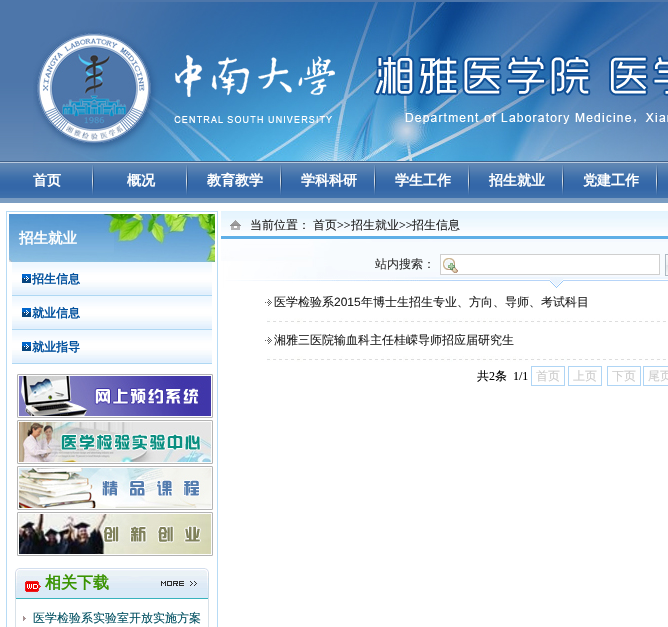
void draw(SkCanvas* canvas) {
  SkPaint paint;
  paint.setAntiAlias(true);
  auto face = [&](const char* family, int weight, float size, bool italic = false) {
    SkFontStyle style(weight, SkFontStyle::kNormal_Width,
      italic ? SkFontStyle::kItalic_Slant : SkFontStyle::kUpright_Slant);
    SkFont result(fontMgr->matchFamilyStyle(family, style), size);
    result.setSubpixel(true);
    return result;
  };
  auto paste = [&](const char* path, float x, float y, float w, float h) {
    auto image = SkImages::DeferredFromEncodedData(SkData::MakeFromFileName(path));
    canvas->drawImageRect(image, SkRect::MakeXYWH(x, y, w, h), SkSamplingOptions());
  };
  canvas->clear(0xffffffff);
  paste("img/1.png", 0, 0, 668, 163);
  paste("img/2.png", 33, 2, 635, 159);
  paste("img/3.png", 0, 163, 668, 35);
  paste("img/4.png", 92, 165, 2, 30);
  paste("img/4.png", 186, 165, 2, 30);
  paste("img/4.png", 280, 165, 2, 30);
  paste("img/4.png", 374, 165, 2, 30);
  paste("img/4.png", 468, 165, 2, 30);
  paste("img/4.png", 562, 165, 2, 30);
  paste("img/4.png", 656, 165, 2, 30);
  paste("img/5.png", 0, 198, 668, 5);
  paint.setStroke(true);
  paint.setStrokeWidth(1);
  paint.setColor(0xffb7dbf5);
  canvas->drawRect(SkRect::MakeXYWH(6.5f, 211.5f, 211, 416), paint);
  paste("img/6.png", 9, 214, 206, 48);
  paste("img/7.png", 12, 262, 200, 34);
  paste("img/7.png", 12, 296, 200, 34);
  paste("img/7.png", 12, 330, 200, 34);
  paste("img/8.png", 17, 374, 196, 44);
  paste("img/9.png", 17, 420, 196, 46);
  paste("img/10.png", 17, 466, 196, 46);
  paste("img/11.png", 17, 512, 196, 44);
  paste("img/12.png", 15, 568, 194, 59);
  paste("img/13.png", 161, 581, 36, 5);
  paste("img/14.png", 23, 616, 3, 5);
  paste("img/15.png", 221, 211, 447, 77);
  paint.setStroke(false);
  paint.setColor(0xffffffff);
  canvas->drawRect(SkRect::MakeXYWH(441, 255, 218, 19), paint);
  paste("img/16.png", 443, 258, 15, 15);
  paint.setStroke(true);
  paint.setColor(0xffcfcfcf);
  canvas->drawRect(SkRect::MakeXYWH(440.5f, 254.5f, 219, 20), paint);
  paste("img/17.png", 665, 254, 3, 22);
  paste("img/18.png", 265, 299, 7, 7);
  paste("img/19.png", 267, 318, 399, 6);
  paste("img/18.png", 265, 337, 7, 7);
  paste("img/19.png", 267, 356, 399, 6);
  paint.setColor(0xffafd5f5);
  canvas->drawRect(SkRect::MakeXYWH(531.5f, 366.5f, 33, 19), paint);
  canvas->drawRect(SkRect::MakeXYWH(568.5f, 366.5f, 33, 19), paint);
  canvas->drawRect(SkRect::MakeXYWH(607.5f, 366.5f, 33, 19), paint);
  canvas->drawRect(SkRect::MakeXYWH(643.5f, 366.5f, 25, 19), paint);
  auto f0 = face("WenQuanYi Zen Hei", 700, 14);
  paint.setStroke(false);
  paint.setColor(0xffffffff);
  {
    const struct { const char* s; float x, y; } items[] = {
      {"首页", 33, 185},
      {"概况", 127, 185},
      {"教育教学", 207, 185},
      {"学科科研", 301, 185},
      {"学生工作", 395, 185},
      {"招生就业", 489, 185},
      {"党建工作", 583, 185},
    };
    for (auto [s, x, y] : items) {
      canvas->drawString(s, x, y, f0, paint);
    }
  }
  auto f1 = face("WenQuanYi Zen Hei", 700, 14.5f);
  canvas->drawString("招生就业", 19, 243, f1, paint);
  auto f2 = face("WenQuanYi Zen Hei", 700, 12);
  paint.setColor(0xff01519e);
  {
    const struct { const char* s; float x, y; } items[] = {
      {"招生信息", 32, 283},
      {"就业信息", 32, 317},
      {"就业指导", 32, 351},
    };
    for (auto [s, x, y] : items) {
      canvas->drawString(s, x, y, f2, paint);
    }
  }
  auto f3 = face("WenQuanYi Zen Hei", 700, 16);
  paint.setColor(0xff3a9402);
  canvas->drawString("相关下载", 45, 588, f3, paint);
  auto f4 = face("WenQuanYi Zen Hei", 500, 12);
  paint.setColor(0xff045263);
  canvas->drawString("医学检验系实验室开放实施方案", 33, 622, f4, paint);
  paint.setColor(0xff222222);
  canvas->drawString("当前位置：", 250, 229, f4, paint);
  canvas->drawString("首页", 313, 229, f4, paint);
  auto f5 = face("Liberation Serif", 400, 12);
  canvas->drawString(">>", 337, 229, f5, paint);
  canvas->drawString("招生就业", 351, 229, f4, paint);
  canvas->drawString(">>", 399, 229, f5, paint);
  canvas->drawString("招生信息", 412, 229, f4, paint);
  paint.setColor(0xff333333);
  canvas->drawString("站内搜索：", 375, 268, f4, paint);
  paint.setColor(0xff222222);
  canvas->drawString("医学检验系", 274, 306, f4, paint);
  auto f6 = face("Liberation Sans", 400, 12);
  canvas->drawString("2015", 334, 306, f6, paint);
  canvas->drawString("年博士生招生专业、方向、导师、考试科目", 361, 306, f4, paint);
  canvas->drawString("湘雅三医院输血科主任桂嵘导师招应届研究生", 274, 344, f4, paint);
  paint.setColor(0xff000000);
  canvas->drawString("共", 477, 380, f4, paint);
  canvas->drawString("2", 489, 380, f5, paint);
  canvas->drawString("条", 495, 380, f4, paint);
  canvas->drawString("1/1", 513, 380, f5, paint);
  paint.setColor(0xffcccccc);
  {
    const struct { const char* s; float x, y; } items[] = {
      {"首页", 536, 380},
      {"上页", 573, 380},
      {"下页", 612, 380},
      {"尾页", 648, 380},
    };
    for (auto [s, x, y] : items) {
      canvas->drawString(s, x, y, f4, paint);
    }
  }
}
